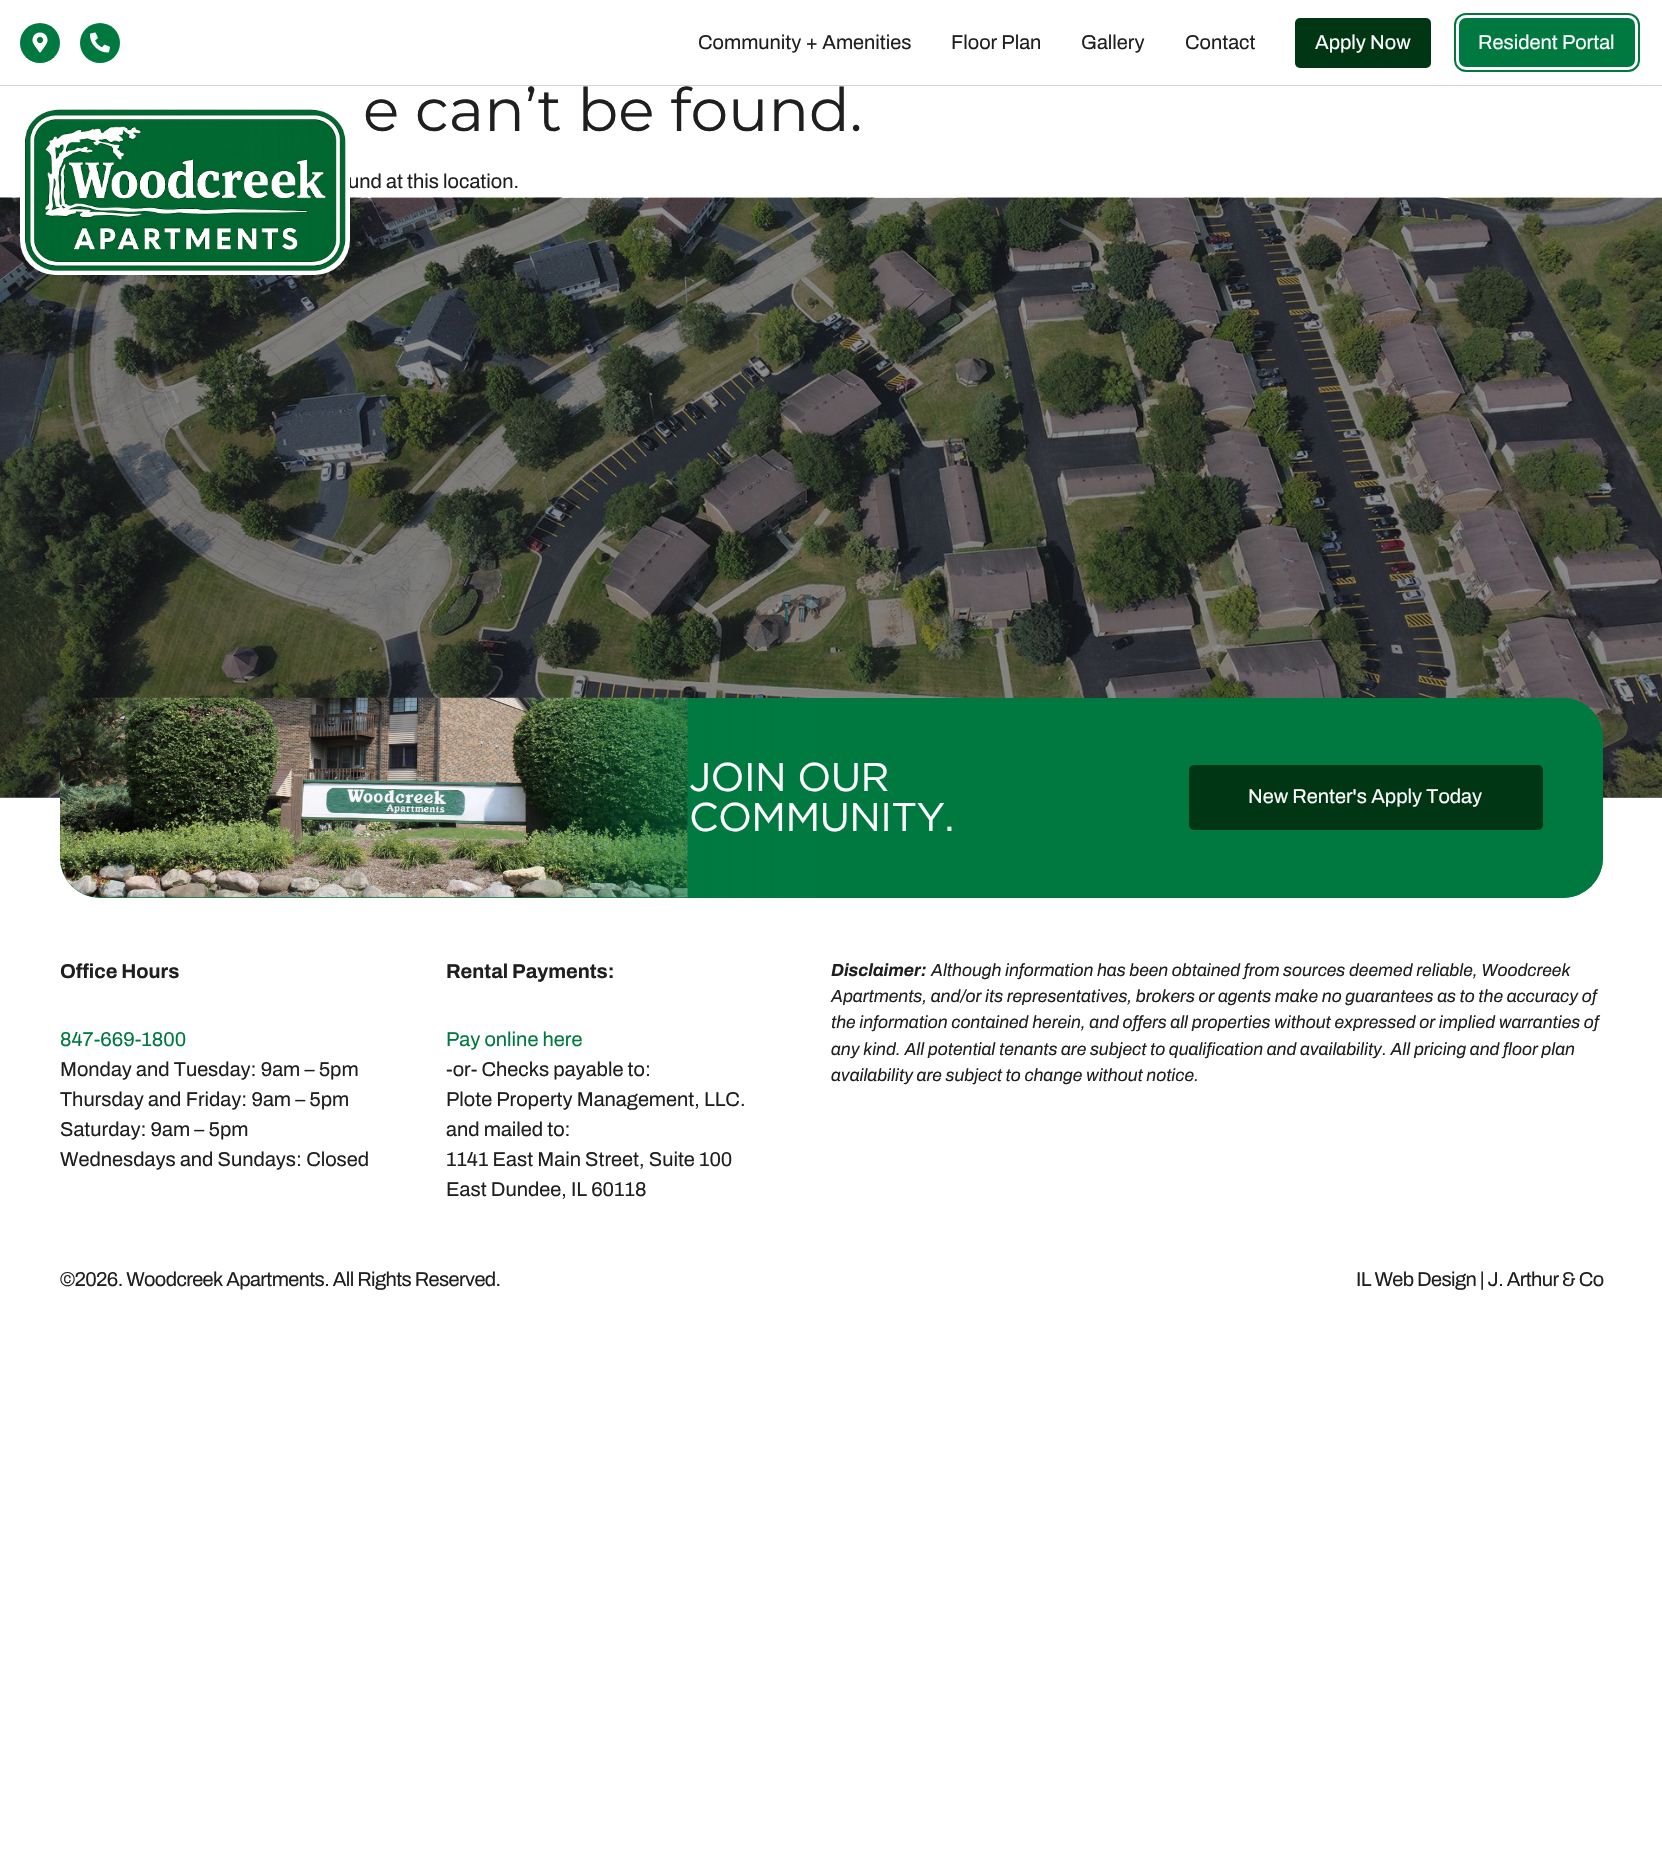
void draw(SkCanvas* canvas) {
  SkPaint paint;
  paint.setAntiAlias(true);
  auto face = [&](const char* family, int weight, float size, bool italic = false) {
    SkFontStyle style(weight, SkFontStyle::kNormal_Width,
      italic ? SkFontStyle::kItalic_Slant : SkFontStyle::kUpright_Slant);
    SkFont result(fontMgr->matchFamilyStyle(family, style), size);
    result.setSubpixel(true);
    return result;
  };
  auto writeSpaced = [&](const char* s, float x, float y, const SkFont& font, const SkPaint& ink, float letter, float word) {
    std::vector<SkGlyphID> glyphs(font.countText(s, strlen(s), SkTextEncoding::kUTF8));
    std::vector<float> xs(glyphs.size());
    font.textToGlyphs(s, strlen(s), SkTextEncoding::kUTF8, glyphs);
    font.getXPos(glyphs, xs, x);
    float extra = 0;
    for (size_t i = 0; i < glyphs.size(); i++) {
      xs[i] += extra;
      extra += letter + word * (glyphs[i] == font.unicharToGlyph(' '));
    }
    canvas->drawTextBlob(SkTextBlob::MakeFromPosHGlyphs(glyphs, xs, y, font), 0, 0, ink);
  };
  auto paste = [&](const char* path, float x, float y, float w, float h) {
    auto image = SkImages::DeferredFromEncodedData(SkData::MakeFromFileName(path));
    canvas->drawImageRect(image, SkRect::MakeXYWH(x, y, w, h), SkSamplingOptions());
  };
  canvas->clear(0xffffffff);
  paint.setColor(0xff8f8f90);
  canvas->drawRect(SkRect::MakeXYWH(0, 797, 1662, 1), paint);
  paint.setColor(0xffd2d2d2);
  canvas->drawRect(SkRect::MakeXYWH(0, 85, 1662, 1), paint);
  paint.setColor(0xff007940);
  canvas->drawCircle(40, 43, 20, paint);
  paste("img/1.png", 32, 32, 16, 21);
  canvas->drawCircle(100, 43, 20, paint);
  paste("img/2.png", 90, 32, 20, 21);
  paint.setColor(0xff003614);
  canvas->drawRoundRect(SkRect::MakeXYWH(1295, 18, 136, 50), 5, 5, paint);
  paint.setColor(0xff007940);
  canvas->drawRoundRect(SkRect::MakeXYWH(1452.5f, 11.5f, 189, 62), 13.5f, 13.5f, paint);
  paint.setStroke(true);
  paint.setStrokeWidth(3);
  paint.setColor(0xffffffff);
  canvas->drawRoundRect(SkRect::MakeXYWH(1452.5f, 11.5f, 189, 62), 13.5f, 13.5f, paint);
  canvas->drawRoundRect(SkRect::MakeXYWH(1457.5f, 16.5f, 179, 52), 8.5f, 8.5f, paint);
  paste("img/4.png", 0, 197, 1662, 601);
  paint.setStroke(false);
  paint.setColor(0xff007940);
  canvas->drawRoundRect(SkRect::MakeXYWH(60, 698, 1543, 200), 40, 40, paint);
  paste("img/5.png", 60, 697, 628, 201);
  {
    const SkColor colors[] = {0x00007940, 0xff007940};
    const float stops[] = {0.3f, 0.49f};
    const SkPoint ends[] = {{60, 798}, {1603, 798}};
    paint.setShader(SkGradientShader::MakeLinear(ends, colors, stops, 2, SkTileMode::kClamp));
    paint.setAlpha(255);
  }
  canvas->drawRoundRect(SkRect::MakeXYWH(60, 698, 1543, 200), 40, 40, paint);
  paint.setShader(nullptr);
  paint.setColor(0xff003614);
  canvas->drawRoundRect(SkRect::MakeXYWH(1189, 765, 354, 65), 5, 5, paint);
  auto f0 = face("Archivo", 400, 20);
  paint.setColor(0xff1f1f21);
  {
    const struct { const char* s; float x, y; } items[] = {
      {"Community + Amenities", 698, 49},
      {"Floor Plan", 951, 49},
      {"Gallery", 1081, 49},
      {"Contact", 1185, 49},
    };
    for (auto [s, x, y] : items) {
      canvas->drawString(s, x, y, f0, paint);
    }
  }
  paint.setColor(0xffffffff);
  canvas->drawString("Apply Now", 1315, 49, f0, paint);
  canvas->drawString("Resident Portal", 1478, 49, f0, paint);
  auto f1 = face("Montserrat", 400, 60);
  paint.setColor(0xff1f1f21);
  canvas->drawString("e can’t be found.", 363, 131, f1, paint);
  canvas->drawString("und at this location.", 348, 188, f0, paint);
  paint.setColor(0xffffffff);
  canvas->drawRoundRect(SkRect::MakeXYWH(20, 106, 330, 169), 35, 35, paint);
  paste("img/3.png", 25, 109, 321, 162);
  auto f2 = face("Gotham", 400, 40);
  writeSpaced("JOIN OUR", 689, 791, f2, paint, -0.6f, 0);
  writeSpaced("COMMUNITY.", 689, 831, f2, paint, -0.6f, 0);
  canvas->drawString("New Renter's Apply Today", 1248, 803, f0, paint);
  auto f3 = face("Archivo", 700, 20);
  paint.setColor(0xff1f1f21);
  canvas->drawString("Office Hours", 60, 978, f3, paint);
  paint.setColor(0xff007940);
  canvas->drawString("847-669-1800", 60, 1046, f0, paint);
  paint.setColor(0xff1f1f21);
  {
    const struct { const char* s; float x, y; } items[] = {
      {"Monday and Tuesday: 9am – 5pm", 60, 1076},
      {"Thursday and Friday: 9am – 5pm", 60, 1106},
      {"Saturday: 9am – 5pm", 60, 1136},
      {"Wednesdays and Sundays: Closed", 60, 1166},
    };
    for (auto [s, x, y] : items) {
      canvas->drawString(s, x, y, f0, paint);
    }
  }
  canvas->drawString("Rental Payments:", 446, 978, f3, paint);
  paint.setColor(0xff007940);
  canvas->drawString("Pay online here", 446, 1046, f0, paint);
  paint.setColor(0xff1f1f21);
  {
    const struct { const char* s; float x, y; } items[] = {
      {"-or- Checks payable to:", 446, 1076},
      {"Plote Property Management, LLC.", 446, 1106},
      {"and mailed to:", 446, 1136},
      {"1141 East Main Street, Suite 100", 446, 1166},
      {"East Dundee, IL 60118", 446, 1196},
    };
    for (auto [s, x, y] : items) {
      canvas->drawString(s, x, y, f0, paint);
    }
  }
  auto f4 = face("Archivo", 700, 17.5f, true);
  canvas->drawString("Disclaimer:", 831, 976, f4, paint);
  auto f5 = face("Archivo", 400, 17.5f, true);
  {
    const struct { const char* s; float x, y; } items[] = {
      {"Although information has been obtained from sources deemed reliable, Woodcreek", 931, 976},
      {"Apartments, and/or its representatives, brokers or agents make no guarantees as to the accuracy of", 831, 1002},
      {"the information contained herein, and offers all properties without expressed or implied warranties of", 831, 1028},
      {"any kind. All potential tenants are subject to qualification and availability. All pricing and floor plan", 831, 1055},
      {"availability are subject to change without notice.", 831, 1081},
    };
    for (auto [s, x, y] : items) {
      canvas->drawString(s, x, y, f5, paint);
    }
  }
  writeSpaced("©2026. Woodcreek Apartments. All Rights Reserved.", 60, 1286, f0, paint, -0.6f, 0);
  writeSpaced("IL Web Design | J. Arthur & Co", 1356, 1286, f0, paint, -0.6f, 0);
}
